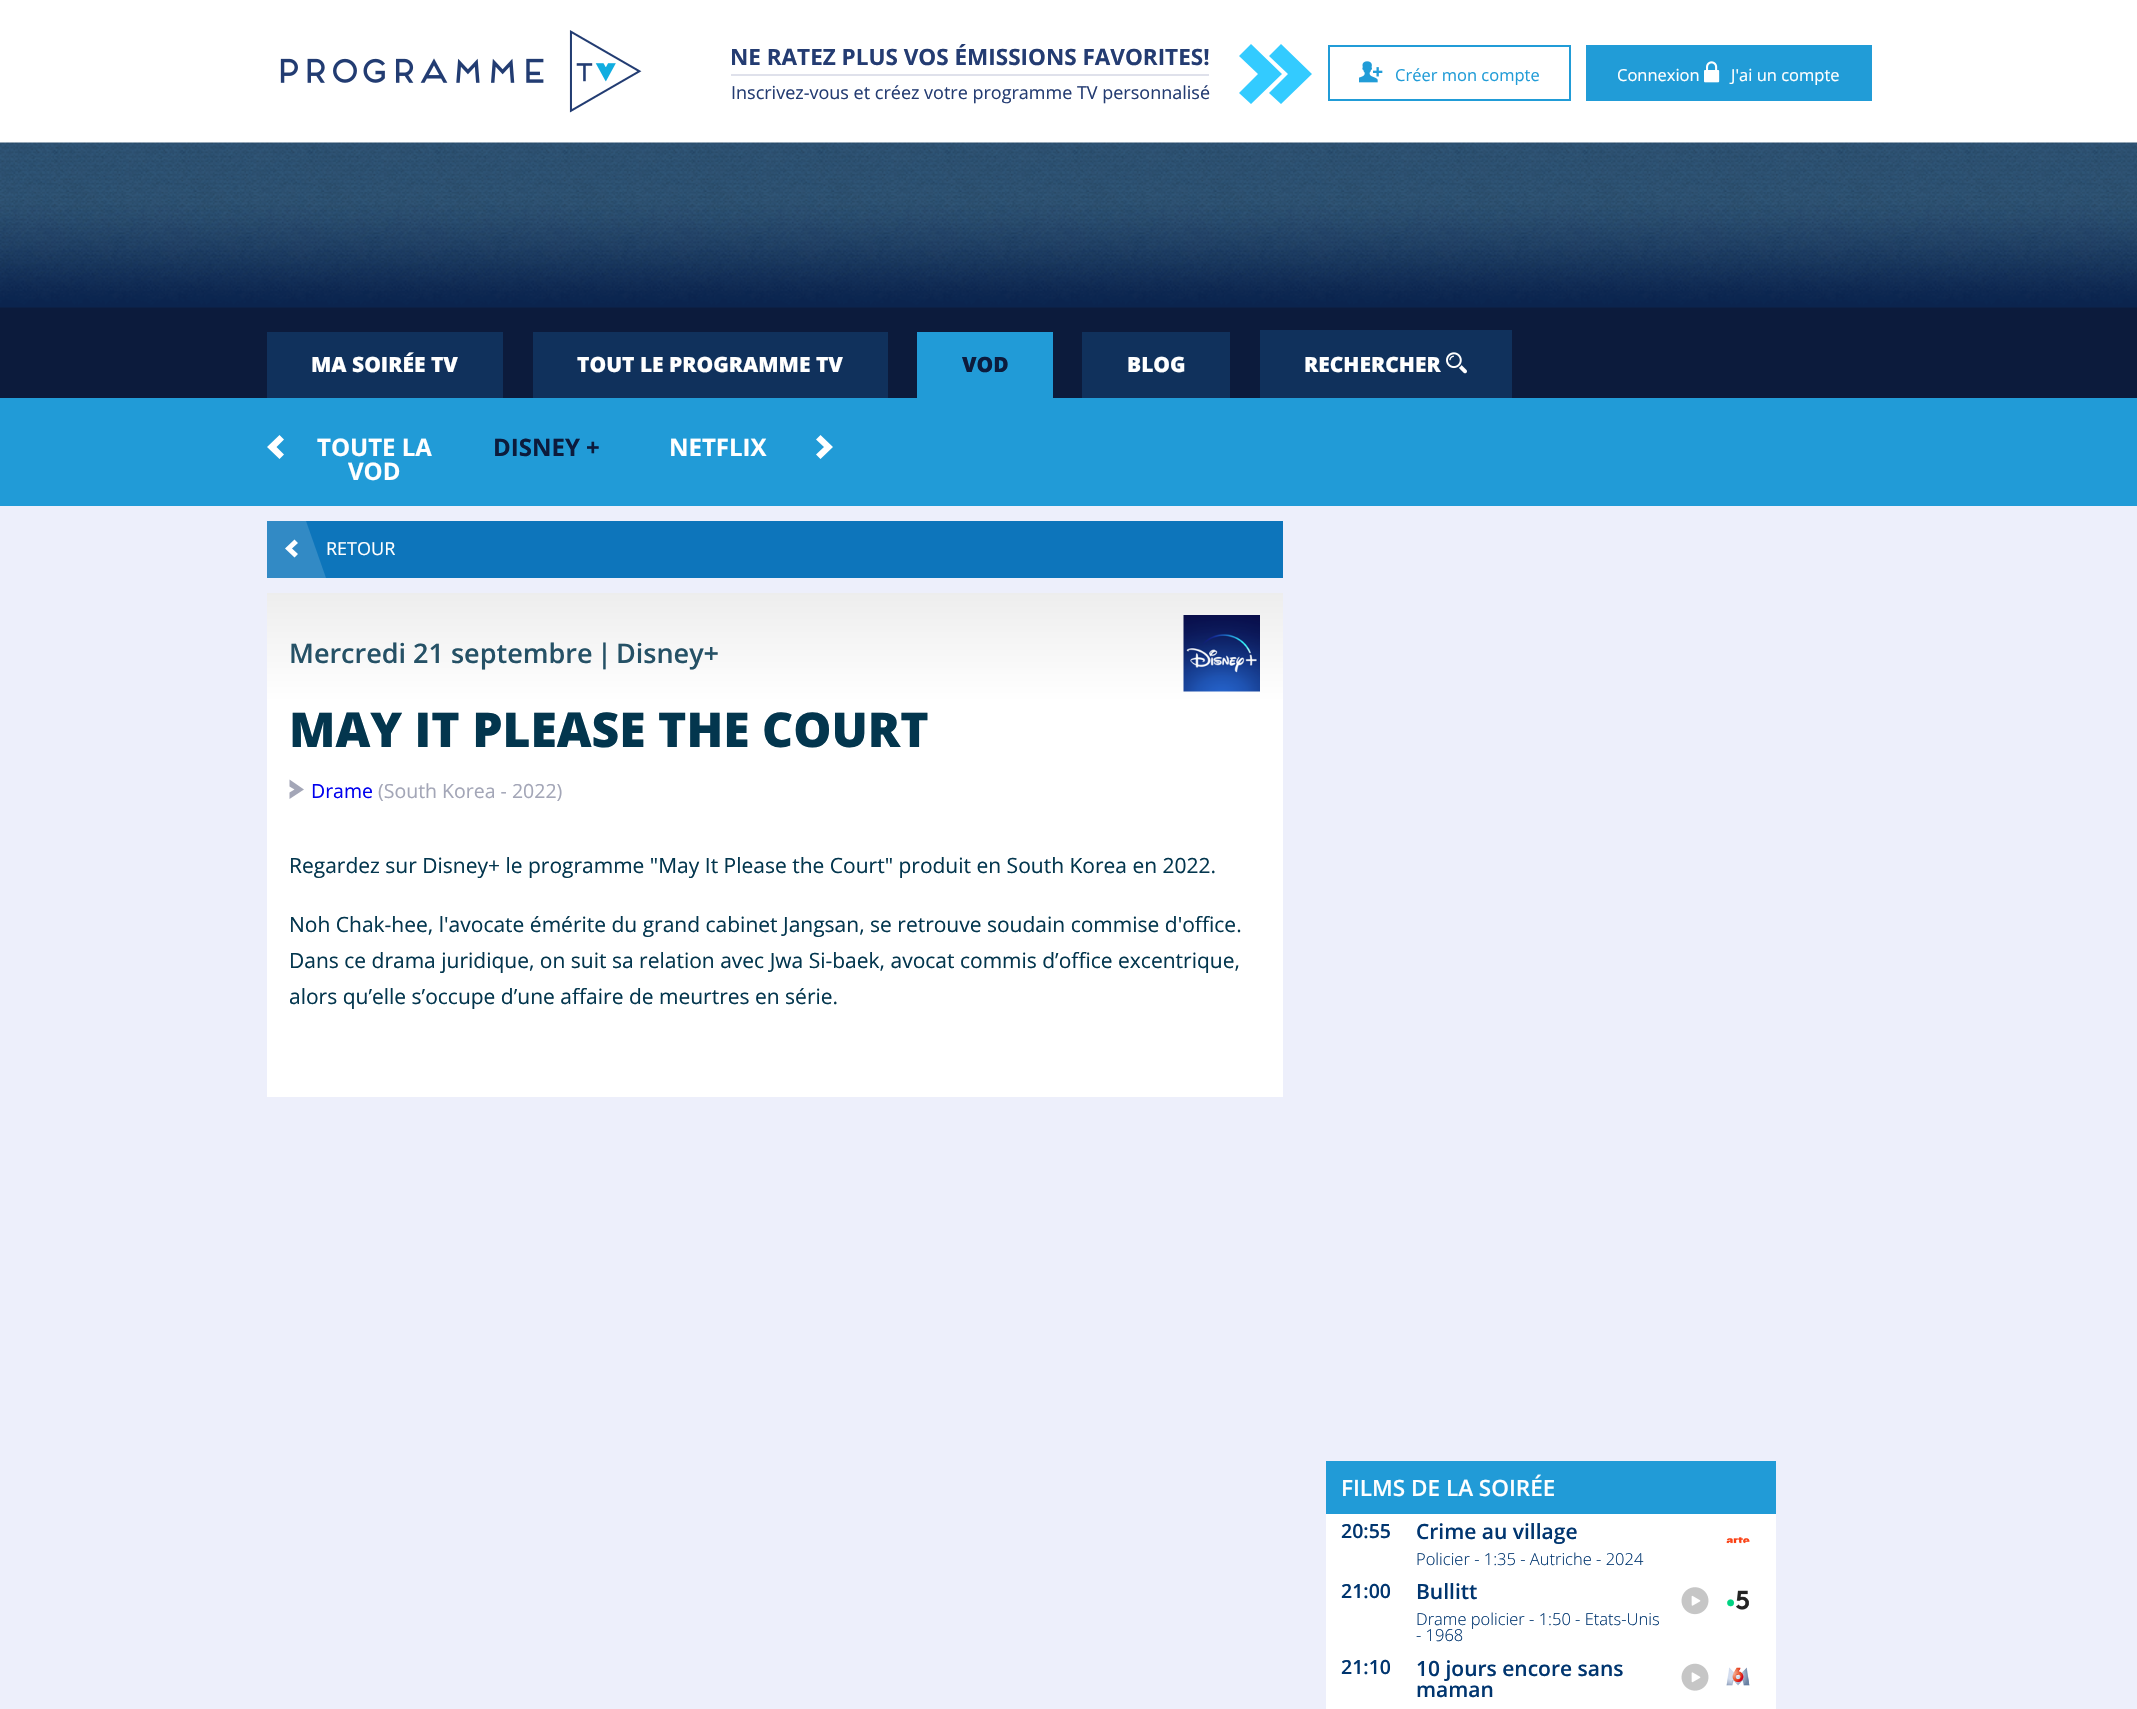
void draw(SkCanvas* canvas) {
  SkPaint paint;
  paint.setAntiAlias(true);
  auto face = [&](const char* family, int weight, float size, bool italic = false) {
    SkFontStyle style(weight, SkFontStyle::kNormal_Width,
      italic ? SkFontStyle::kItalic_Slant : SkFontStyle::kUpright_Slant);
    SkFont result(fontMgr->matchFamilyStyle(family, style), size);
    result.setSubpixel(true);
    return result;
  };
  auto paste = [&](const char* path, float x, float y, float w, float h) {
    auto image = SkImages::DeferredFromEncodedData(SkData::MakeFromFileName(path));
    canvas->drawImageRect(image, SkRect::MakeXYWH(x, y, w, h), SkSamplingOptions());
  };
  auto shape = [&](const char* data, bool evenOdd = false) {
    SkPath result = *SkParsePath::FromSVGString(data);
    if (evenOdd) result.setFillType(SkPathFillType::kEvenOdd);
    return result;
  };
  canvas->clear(0xffffffff);
  paste("img/1.png", 280, 30, 362, 83);
  paint.setColor(0xffdfe1eb);
  canvas->drawRect(SkRect::MakeXYWH(731, 74, 478, 2), paint);
  paint.setColor(0xff33cbff);
  canvas->drawPath(shape("M1251 104L1239 93L1258 74L1239 56L1251 44L1282 74Z"), paint);
  canvas->drawPath(shape("M1281 104L1269 93L1288 74L1269 56L1281 44L1312 74Z"), paint);
  paint.setStroke(true);
  paint.setStrokeWidth(2);
  paint.setColor(0xff219cd7);
  canvas->drawRect(SkRect::MakeXYWH(1329, 46, 241, 54), paint);
  paste("img/2.png", 1359, 61, 24, 22);
  paint.setStroke(false);
  canvas->drawRect(SkRect::MakeXYWH(1586, 45, 286, 56), paint);
  paste("img/3.png", 1704, 61, 16, 22);
  paint.setColor(0xff0c1b3c);
  canvas->drawRect(SkRect::MakeXYWH(0, 307, 2137, 91), paint);
  paste("img/4.png", 0, 142, 2137, 166);
  {
    const struct { float x, y, w, h; SkColor color; } items[] = {
      {0, 398, 2137, 108, 0xff219bd7},
      {267, 332, 236, 66, 0xff10315c},
      {533, 332, 355, 66, 0xff10315c},
      {917, 332, 136, 66, 0xff219bd7},
      {1082, 332, 148, 66, 0xff10315c},
      {1260, 330, 252, 68, 0xff10315c},
    };
    for (auto [x, y, w, h, color] : items) {
      paint.setColor(color);
      canvas->drawRect(SkRect::MakeXYWH(x, y, w, h), paint);
    }
  }
  paste("img/5.png", 1446, 352, 21, 22);
  paint.setColor(0xffffffff);
  canvas->drawPath(shape("M279.5 435L284 439.5L276.5 447L284 454.5L279.5 459L267 447Z"), paint);
  canvas->drawPath(shape("M820.5 459L816 454.5L824 447L816 439.5L820.5 435L833 447Z"), paint);
  paint.setColor(0xffedeffb);
  canvas->drawRect(SkRect::MakeXYWH(0, 506, 2137, 1203), paint);
  paint.setColor(0xff0d75bb);
  canvas->drawRect(SkRect::MakeXYWH(267, 521, 1016, 57), paint);
  paint.setColor(0xffffffff);
  canvas->drawPath(shape("M294.5 539.5L298 543L292 548.5L298 554L294.5 557.5L285 548.5Z"), paint);
  canvas->save();
  canvas->clipRect(SkRect::MakeXYWH(267, 521, 1016, 57));
  paint.setColor(0x26ffffff);
  canvas->drawPath(shape("M231 521H306L326 578H251Z"), paint);
  canvas->restore();
  {
    const SkColor colors[] = {0xffededed, 0xffffffff};
    const float stops[] = {0, 1};
    const SkPoint ends[] = {{775, 592}, {775, 702}};
    paint.setShader(SkGradientShader::MakeLinear(ends, colors, stops, 2, SkTileMode::kClamp));
    paint.setAlpha(255);
  }
  canvas->drawRect(SkRect::MakeXYWH(267, 593, 1016, 109), paint);
  paste("img/6.png", 1183, 615, 77, 77);
  paint.setShader(nullptr);
  paint.setColor(0xffffffff);
  canvas->drawRect(SkRect::MakeXYWH(267, 702, 1016, 395), paint);
  paint.setColor(0xffa3a6b7);
  canvas->drawPath(shape("M289.5 786.5V779.5L304 789.5L289.5 799V792.5L294.5 789.5Z"), paint);
  paint.setColor(0xffffffff);
  canvas->drawRect(SkRect::MakeXYWH(1326, 1514, 450, 195), paint);
  paint.setColor(0xff219bd7);
  canvas->drawRect(SkRect::MakeXYWH(1326, 1461, 450, 53), paint);
  paste("img/7.png", 1726, 1537, 24, 7);
  paste("img/8.png", 1681, 1587, 28, 28);
  paste("img/9.png", 1727, 1590, 22, 20);
  paste("img/10.png", 1681, 1663, 28, 28);
  paste("img/11.png", 1726, 1667, 24, 19);
  auto f0 = face("Open Sans", 700, 22.5f);
  paint.setColor(0xff243c72);
  canvas->drawString("NE RATEZ PLUS VOS ÉMISSIONS FAVORITES!", 730, 65, f0, paint);
  auto f1 = face("Open Sans", 400, 18);
  canvas->drawString("Inscrivez-vous et créez votre programme TV personnalisé", 731, 99, f1, paint);
  auto f2 = face("Open Sans", 400, 16.5f);
  paint.setColor(0xff219cd7);
  canvas->drawString("Créer mon compte", 1395, 81, f2, paint);
  paint.setColor(0xffffffff);
  canvas->drawString("Connexion", 1617, 81, f2, paint);
  canvas->drawString("J'ai un compte", 1731, 81, f2, paint);
  auto f3 = face("Open Sans", 800, 21);
  canvas->drawString("MA SOIRÉE TV", 311, 372, f3, paint);
  canvas->drawString("TOUT LE PROGRAMME TV", 577, 372, f3, paint);
  paint.setColor(0xff0c1b3c);
  canvas->drawString("VOD", 962, 372, f3, paint);
  paint.setColor(0xffffffff);
  canvas->drawString("BLOG", 1127, 372, f3, paint);
  canvas->drawString("RECHERCHER", 1304, 372, f3, paint);
  auto f4 = face("Open Sans", 700, 24);
  canvas->drawString("TOUTE LA", 317, 456, f4, paint);
  canvas->drawString("VOD", 348, 480, f4, paint);
  paint.setColor(0xff0c1b3c);
  canvas->drawString("DISNEY +", 493, 456, f4, paint);
  paint.setColor(0xffffffff);
  canvas->drawString("NETFLIX", 669, 456, f4, paint);
  canvas->drawString("RETOUR", 326, 555, f1, paint);
  auto f5 = face("Open Sans", 600, 27);
  paint.setColor(0xff255166);
  {
    const struct { const char* s; float x, y; } items[] = {
      {"Mercredi 21 septembre", 289, 663},
      {"|", 597, 663},
      {"Disney+", 616, 663},
    };
    for (auto [s, x, y] : items) {
      canvas->drawString(s, x, y, f5, paint);
    }
  }
  auto f6 = face("Open Sans", 800, 48);
  paint.setColor(0xff03364e);
  canvas->drawString("MAY IT PLEASE THE COURT", 289, 747, f6, paint);
  auto f7 = face("Open Sans", 400, 19.5f);
  paint.setColor(0xff0000ee);
  canvas->drawString("Drame", 311, 798, f7, paint);
  paint.setColor(0xffa3a6b7);
  canvas->drawString("(South Korea - 2022)", 378, 798, f7, paint);
  auto f8 = face("Open Sans", 400, 21);
  paint.setColor(0xff03364e);
  {
    const struct { const char* s; float x, y; } items[] = {
      {"Regardez sur Disney+ le programme \"May It Please the Court\" produit en South Korea en 2022.", 289, 873},
      {"Noh Chak-hee, l'avocate émérite du grand cabinet Jangsan, se retrouve soudain commise d'office.", 289, 932},
      {"Dans ce drama juridique, on suit sa relation avec Jwa Si-baek, avocat commis d’office excentrique,", 289, 968},
      {"alors qu’elle s’occupe d’une affaire de meurtres en série.", 289, 1004},
    };
    for (auto [s, x, y] : items) {
      canvas->drawString(s, x, y, f8, paint);
    }
  }
  auto f9 = face("Open Sans", 600, 22.5f);
  paint.setColor(0xffffffff);
  canvas->drawString("FILMS DE LA SOIRÉE", 1341, 1496, f9, paint);
  auto f10 = face("Open Sans", 600, 19.5f);
  paint.setColor(0xff00356f);
  canvas->drawString("20:55", 1341, 1538, f10, paint);
  auto f11 = face("Open Sans", 600, 21);
  canvas->drawString("Crime au village", 1416, 1539, f11, paint);
  auto f12 = face("Open Sans", 300, 16.5f);
  canvas->drawString("Policier - 1:35 - Autriche - 2024", 1416, 1565, f12, paint);
  canvas->drawString("21:00", 1341, 1598, f10, paint);
  canvas->drawString("Bullitt", 1416, 1599, f11, paint);
  canvas->drawString("Drame policier - 1:50 - Etats-Unis", 1416, 1625, f12, paint);
  canvas->drawString("- 1968", 1416, 1641, f12, paint);
  canvas->drawString("21:10", 1341, 1674, f10, paint);
  canvas->drawString("10 jours encore sans", 1416, 1676, f11, paint);
  canvas->drawString("maman", 1416, 1697, f11, paint);
}
